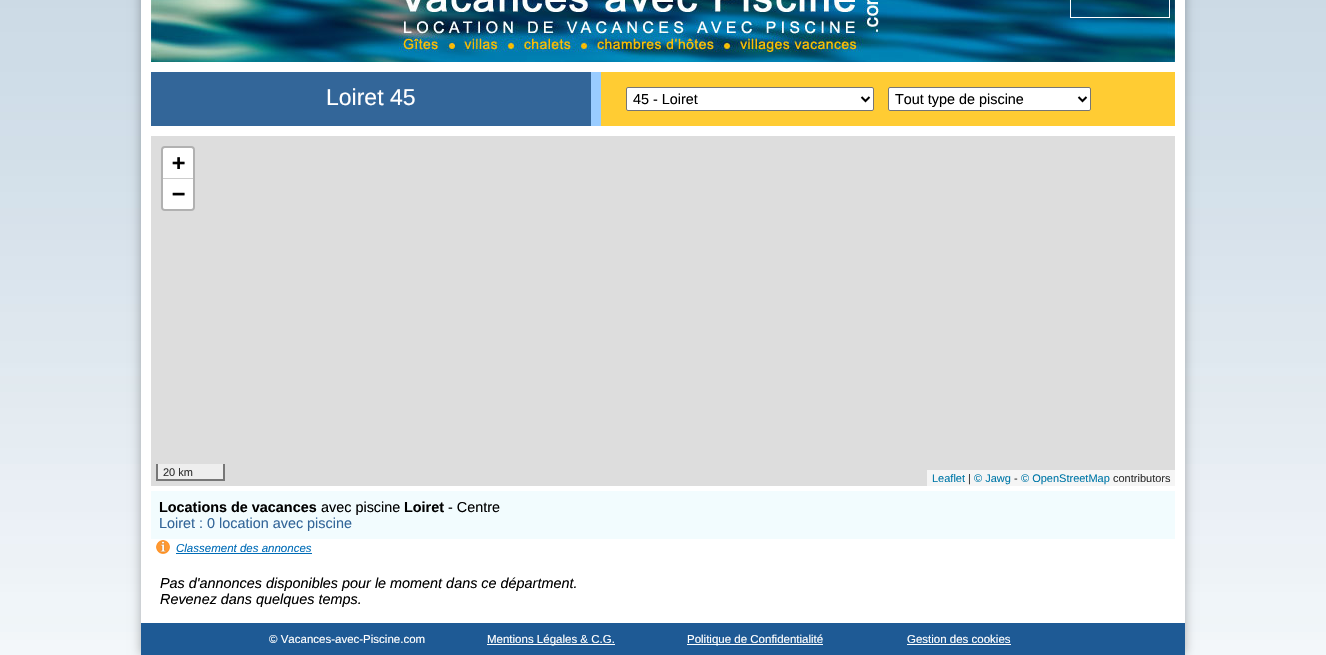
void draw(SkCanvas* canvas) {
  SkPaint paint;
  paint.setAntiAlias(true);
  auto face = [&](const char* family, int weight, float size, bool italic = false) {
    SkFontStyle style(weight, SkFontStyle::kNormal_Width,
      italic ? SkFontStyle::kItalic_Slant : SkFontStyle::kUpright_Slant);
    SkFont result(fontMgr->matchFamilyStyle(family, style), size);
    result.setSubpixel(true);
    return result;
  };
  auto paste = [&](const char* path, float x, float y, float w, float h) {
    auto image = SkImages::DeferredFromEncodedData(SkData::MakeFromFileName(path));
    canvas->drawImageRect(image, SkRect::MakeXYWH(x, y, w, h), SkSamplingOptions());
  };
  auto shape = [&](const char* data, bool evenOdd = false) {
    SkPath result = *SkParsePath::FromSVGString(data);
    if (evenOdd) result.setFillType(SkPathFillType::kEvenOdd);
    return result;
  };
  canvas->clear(0xffffffff);
  paste("img/1.png", 0, 0, 1326, 655);
  paint.setColor(0x4d000000);
  paint.setMaskFilter(SkMaskFilter::MakeBlur(kNormal_SkBlurStyle, 5));
  canvas->drawRect(SkRect::MakeXYWH(141, -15, 1044, 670), paint);
  paint.setMaskFilter(nullptr);
  paint.setColor(0xffffffff);
  canvas->drawRect(SkRect::MakeXYWH(141, 0, 1044, 623), paint);
  paste("img/2.png", 151, 0, 1024, 62);
  paint.setStroke(true);
  paint.setStrokeWidth(1);
  canvas->drawRect(SkRect::MakeXYWH(1070.5f, -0.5f, 99, 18), paint);
  paint.setStroke(false);
  {
    const struct { float x, y, w, h; SkColor color; } items[] = {
      {151, 72, 440, 54, 0xff336699},
      {601, 72, 574, 54, 0xffffcc33},
      {591, 72, 10, 54, 0xff99ccff},
    };
    for (auto [x, y, w, h, color] : items) {
      paint.setColor(color);
      canvas->drawRect(SkRect::MakeXYWH(x, y, w, h), paint);
    }
  }
  paint.setColor(0xffffffff);
  canvas->drawRoundRect(SkRect::MakeXYWH(626.5f, 87.5f, 247, 23), 1.5f, 1.5f, paint);
  paint.setStroke(true);
  paint.setColor(0xff767676);
  canvas->drawRoundRect(SkRect::MakeXYWH(626.5f, 87.5f, 247, 23), 1.5f, 1.5f, paint);
  paint.setStrokeWidth(2);
  paint.setColor(0xff000000);
  canvas->drawPath(shape("M861.5 97L865.5 101L869.5 97"), paint);
  paint.setStroke(false);
  paint.setColor(0xffffffff);
  canvas->drawRoundRect(SkRect::MakeXYWH(888.5f, 87.5f, 202, 23), 1.5f, 1.5f, paint);
  paint.setStroke(true);
  paint.setStrokeWidth(1);
  paint.setColor(0xff767676);
  canvas->drawRoundRect(SkRect::MakeXYWH(888.5f, 87.5f, 202, 23), 1.5f, 1.5f, paint);
  paint.setStrokeWidth(2);
  paint.setColor(0xff000000);
  canvas->drawPath(shape("M1078.5 97L1082.5 101L1086.5 97"), paint);
  paint.setStroke(false);
  paint.setColor(0xffdddddd);
  canvas->drawRect(SkRect::MakeXYWH(151, 136, 1024, 350), paint);
  paint.setStroke(true);
  paint.setColor(0xffb1b1b1);
  canvas->drawRoundRect(SkRect::MakeXYWH(162, 147, 32, 63), 3, 3, paint);
  paint.setStroke(false);
  paint.setColor(0xffffffff);
  canvas->drawPath(shape("M165 148H191C192 148 193 149 193 150V179H163V150C163 149 164 148 165 148Z"), paint);
  paint.setColor(0xffcccccc);
  canvas->drawRect(SkRect::MakeXYWH(163, 178, 30, 1), paint);
  paint.setColor(0xffffffff);
  canvas->drawPath(shape("M163 179H193V207C193 208 192 209 191 209H165C164 209 163 208 163 207Z"), paint);
  {
    const struct { float x, y, w, h; SkColor color; } items[] = {
      {158, 464, 65, 15, 0xffeeeeee},
      {223, 464, 2, 17, 0xff777777},
      {156, 479, 69, 2, 0xff777777},
      {156, 464, 2, 17, 0xff777777},
      {927, 470, 248, 16, 0xfff5f5f5},
      {151, 491, 1024, 48, 0xfff2fcfe},
    };
    for (auto [x, y, w, h, color] : items) {
      paint.setColor(color);
      canvas->drawRect(SkRect::MakeXYWH(x, y, w, h), paint);
    }
  }
  paste("img/3.png", 156, 540, 14, 14);
  {
    const struct { float x, y, w, h; SkColor color; } items[] = {
      {176, 553, 136, 1, 0xff006cb7},
      {141, 623, 1044, 32, 0xff1e5a95},
      {487, 644, 128, 1, 0xffffffff},
      {687, 644, 136, 1, 0xffffffff},
      {907, 644, 104, 1, 0xffffffff},
    };
    for (auto [x, y, w, h, color] : items) {
      paint.setColor(color);
      canvas->drawRect(SkRect::MakeXYWH(x, y, w, h), paint);
    }
  }
  auto f0 = face("Liberation Sans", 400, 23);
  canvas->drawString("Loiret 45", 326, 105, f0, paint);
  auto f1 = face("Liberation Sans", 400, 14.4f);
  paint.setColor(0xff000000);
  canvas->drawString("45 - Loiret", 633, 104, f1, paint);
  canvas->drawString("Tout type de piscine", 895, 104, f1, paint);
  auto f2 = face("DejaVu Sans Mono", 700, 22);
  canvas->drawString("+", 172, 170, f2, paint);
  canvas->drawString("−", 172, 201, f2, paint);
  auto f3 = face("Liberation Sans", 400, 11);
  paint.setColor(0xff333333);
  canvas->drawString("20 km", 163, 476, f3, paint);
  paint.setColor(0xff0078a8);
  canvas->drawString("Leaflet", 932, 482, f3, paint);
  paint.setColor(0xff333333);
  canvas->drawString("|", 968, 482, f3, paint);
  paint.setColor(0xff0078a8);
  canvas->drawString("© Jawg", 974, 482, f3, paint);
  paint.setColor(0xff333333);
  canvas->drawString("-", 1014, 482, f3, paint);
  paint.setColor(0xff0078a8);
  canvas->drawString("© OpenStreetMap", 1021, 482, f3, paint);
  paint.setColor(0xff333333);
  canvas->drawString("contributors", 1113, 482, f3, paint);
  auto f4 = face("Liberation Sans", 700, 14.4f);
  paint.setColor(0xff000000);
  canvas->drawString("Locations de vacances", 159, 512, f4, paint);
  canvas->drawString("avec piscine", 321, 512, f1, paint);
  canvas->drawString("Loiret", 404, 512, f4, paint);
  canvas->drawString("- Centre", 448, 512, f1, paint);
  paint.setColor(0xff336699);
  canvas->drawString("Loiret : 0 location avec piscine", 159, 528, f1, paint);
  auto f5 = face("Liberation Sans", 400, 11.5f, true);
  paint.setColor(0xff006cb7);
  canvas->drawString("Classement des annonces", 176, 552, f5, paint);
  auto f6 = face("Liberation Sans", 400, 14.4f, true);
  paint.setColor(0xff000000);
  canvas->drawString("Pas d'annonces disponibles pour le moment dans ce départment.", 160, 588, f6, paint);
  canvas->drawString("Revenez dans quelques temps.", 160, 604, f6, paint);
  auto f7 = face("Liberation Sans", 400, 11.5f);
  paint.setColor(0xffffffff);
  {
    const struct { const char* s; float x, y; } items[] = {
      {"© Vacances-avec-Piscine.com", 269, 643},
      {"Mentions Légales & C.G.", 487, 643},
      {"Politique de Confidentialité", 687, 643},
      {"Gestion des cookies", 907, 643},
    };
    for (auto [s, x, y] : items) {
      canvas->drawString(s, x, y, f7, paint);
    }
  }
}
